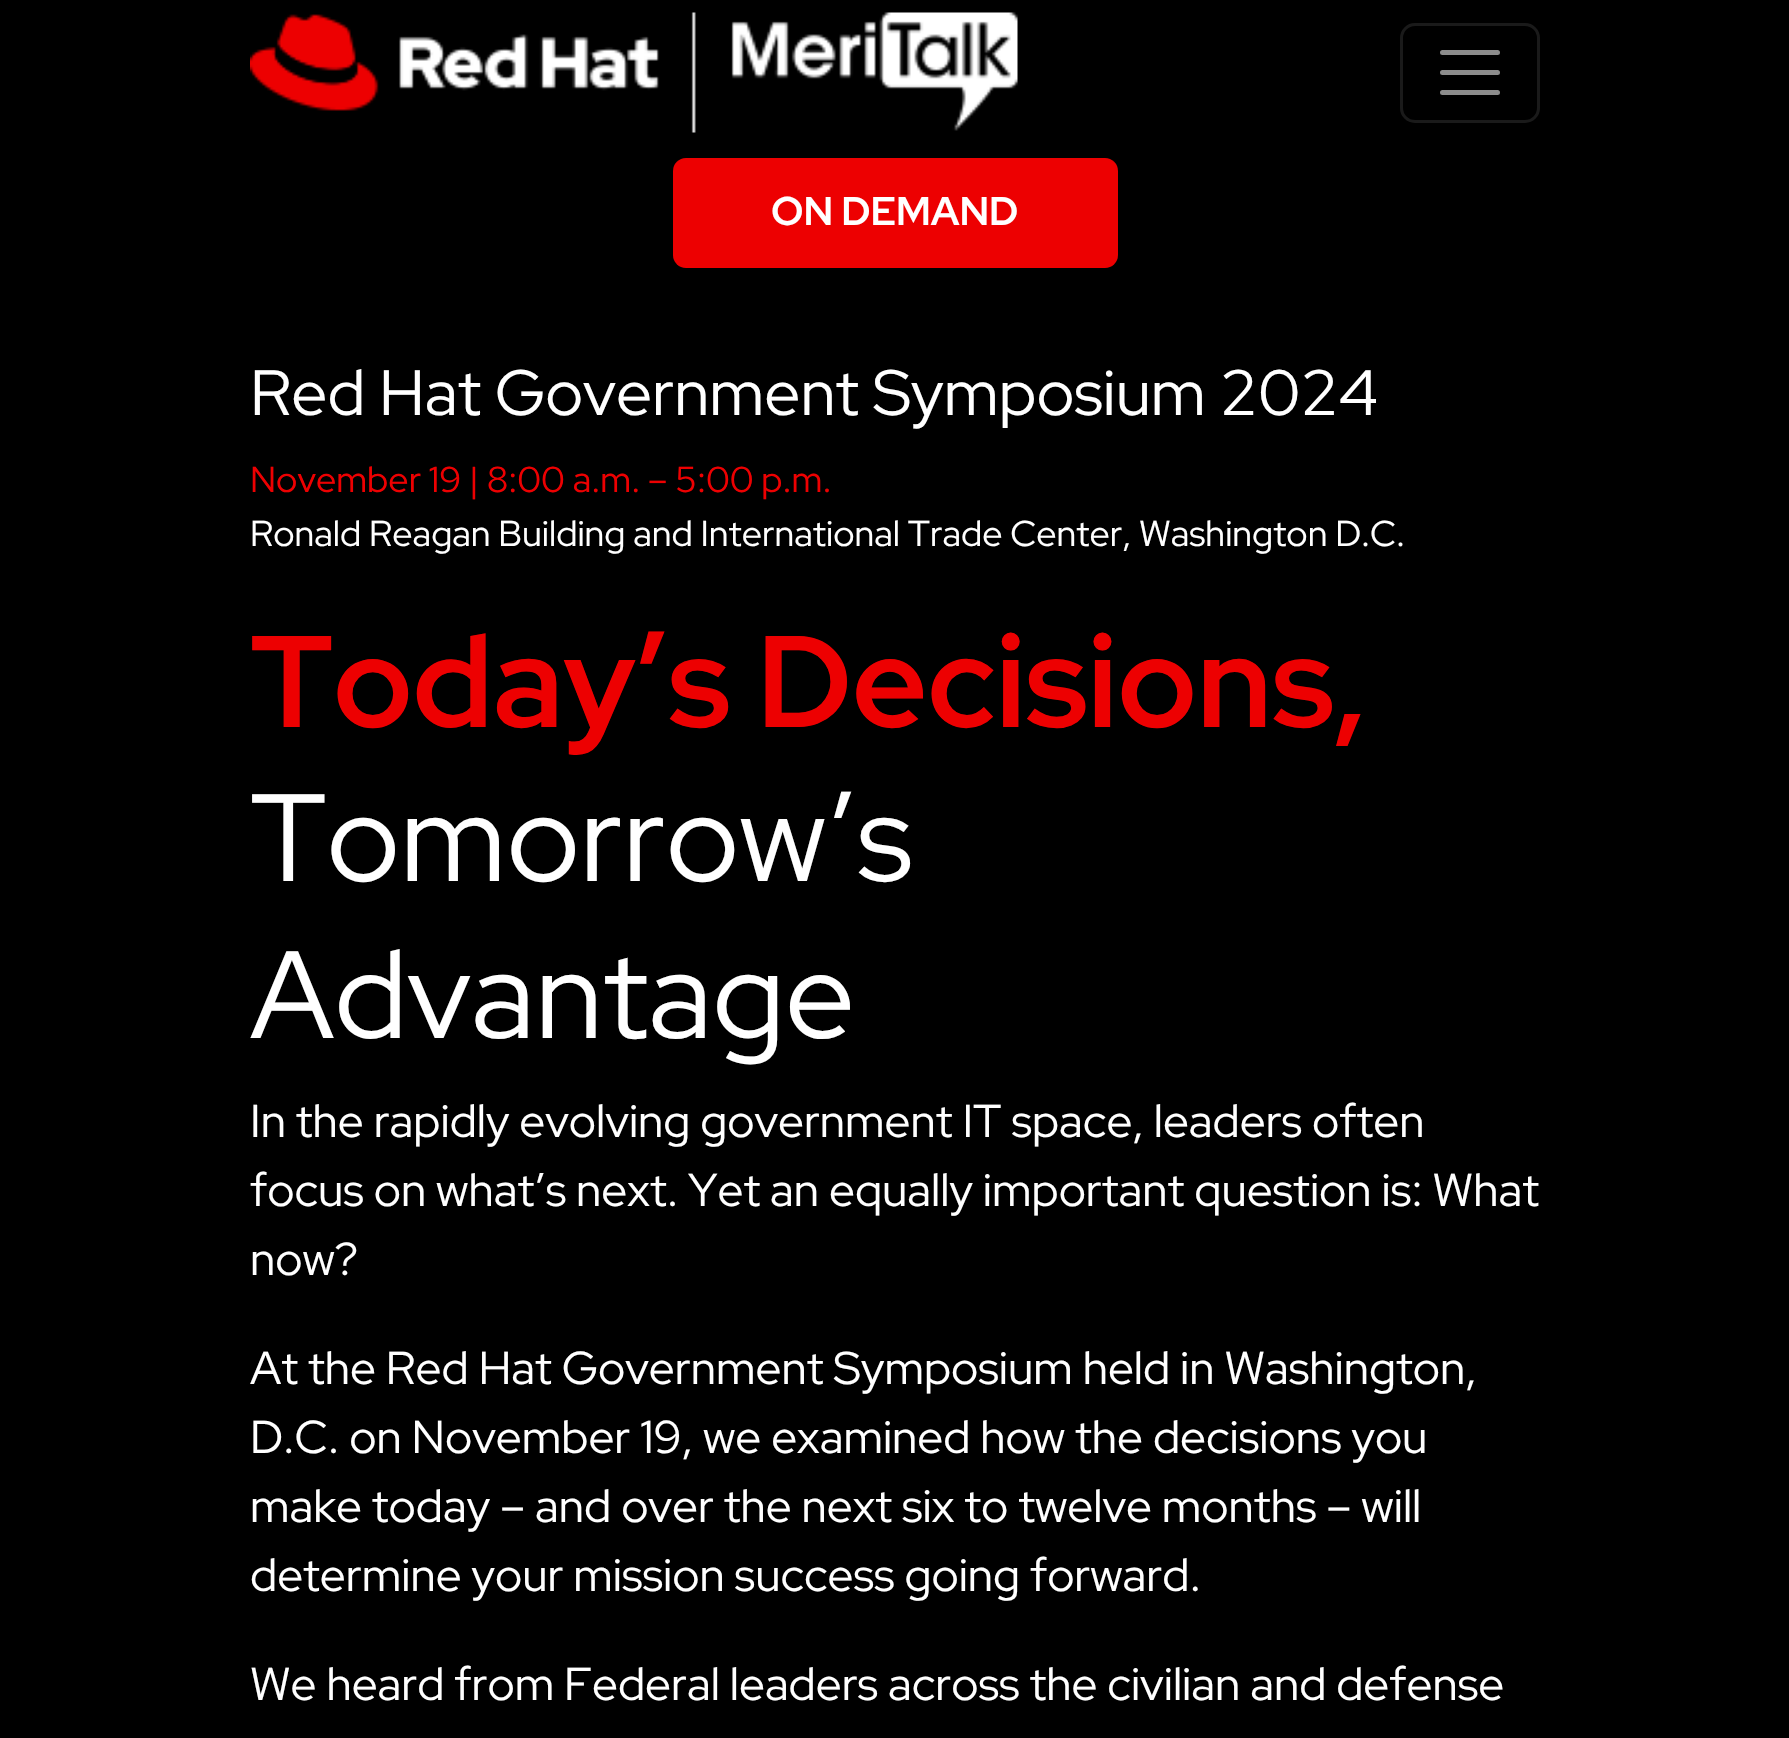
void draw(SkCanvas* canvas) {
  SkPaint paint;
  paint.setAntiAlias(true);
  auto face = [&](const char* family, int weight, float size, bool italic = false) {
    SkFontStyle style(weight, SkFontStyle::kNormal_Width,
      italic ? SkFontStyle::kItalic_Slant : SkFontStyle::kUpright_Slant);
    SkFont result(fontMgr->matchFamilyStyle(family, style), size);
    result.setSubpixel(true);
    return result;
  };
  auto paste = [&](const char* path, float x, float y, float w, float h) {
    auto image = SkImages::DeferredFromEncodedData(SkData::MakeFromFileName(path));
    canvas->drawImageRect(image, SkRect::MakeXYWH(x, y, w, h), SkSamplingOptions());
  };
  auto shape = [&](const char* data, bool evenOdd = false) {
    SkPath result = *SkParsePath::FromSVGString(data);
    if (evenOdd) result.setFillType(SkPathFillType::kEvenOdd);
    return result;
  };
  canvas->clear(0xff000000);
  paste("img/1.png", 250, 12, 768, 121);
  paint.setStroke(true);
  paint.setStrokeWidth(3);
  paint.setColor(0xff1a1a1a);
  canvas->drawRoundRect(SkRect::MakeXYWH(1401.5f, 24.5f, 137, 97), 13.5f, 13.5f, paint);
  paint.setStrokeWidth(5);
  paint.setStrokeCap(SkPaint::kRound_Cap);
  paint.setColor(0xff8c8c8c);
  canvas->drawPath(shape("M1442.5 52.5H1497.5M1442.5 72.5H1497.5M1442.5 92.5H1497.5"), paint);
  paint.setStroke(false);
  paint.setColor(0xffed0001);
  canvas->drawRoundRect(SkRect::MakeXYWH(673, 158, 445, 110), 13, 13, paint);
  auto f0 = face("Red Hat Display", 700, 40);
  paint.setColor(0xffffffff);
  canvas->drawString("ON DEMAND", 771, 225, f0, paint);
  auto f1 = face("Red Hat Display", 400, 64);
  canvas->drawString("Red Hat Government Symposium 2024", 250, 415, f1, paint);
  auto f2 = face("Red Hat Display", 400, 36);
  paint.setColor(0xffed0001);
  canvas->drawString("November 19 | 8:00 a.m. – 5:00 p.m.", 250, 492, f2, paint);
  paint.setColor(0xffffffff);
  canvas->drawString("Ronald Reagan Building and International Trade Center, Washington D.C.", 250, 546, f2, paint);
  auto f3 = face("Red Hat Display", 700, 130);
  paint.setColor(0xffed0001);
  canvas->drawString("Today’s Decisions,", 250, 727, f3, paint);
  auto f4 = face("Red Hat Display", 400, 124);
  paint.setColor(0xffffffff);
  canvas->drawString("Tomorrow’s", 250, 881, f4, paint);
  canvas->drawString("Advantage", 250, 1038, f4, paint);
  auto f5 = face("Red Hat Display", 400, 46);
  {
    const struct { const char* s; float x, y; } items[] = {
      {"In the rapidly evolving government IT space, leaders often", 250, 1137},
      {"focus on what’s next. Yet an equally important question is: What", 250, 1206},
      {"now?", 250, 1275},
      {"At the Red Hat Government Symposium held in Washington,", 250, 1384},
      {"D.C. on November 19, we examined how the decisions you", 250, 1453},
      {"make today – and over the next six to twelve months – will", 250, 1522},
      {"determine your mission success going forward.", 250, 1591},
      {"We heard from Federal leaders across the civilian and defense", 250, 1700},
    };
    for (auto [s, x, y] : items) {
      canvas->drawString(s, x, y, f5, paint);
    }
  }
}
